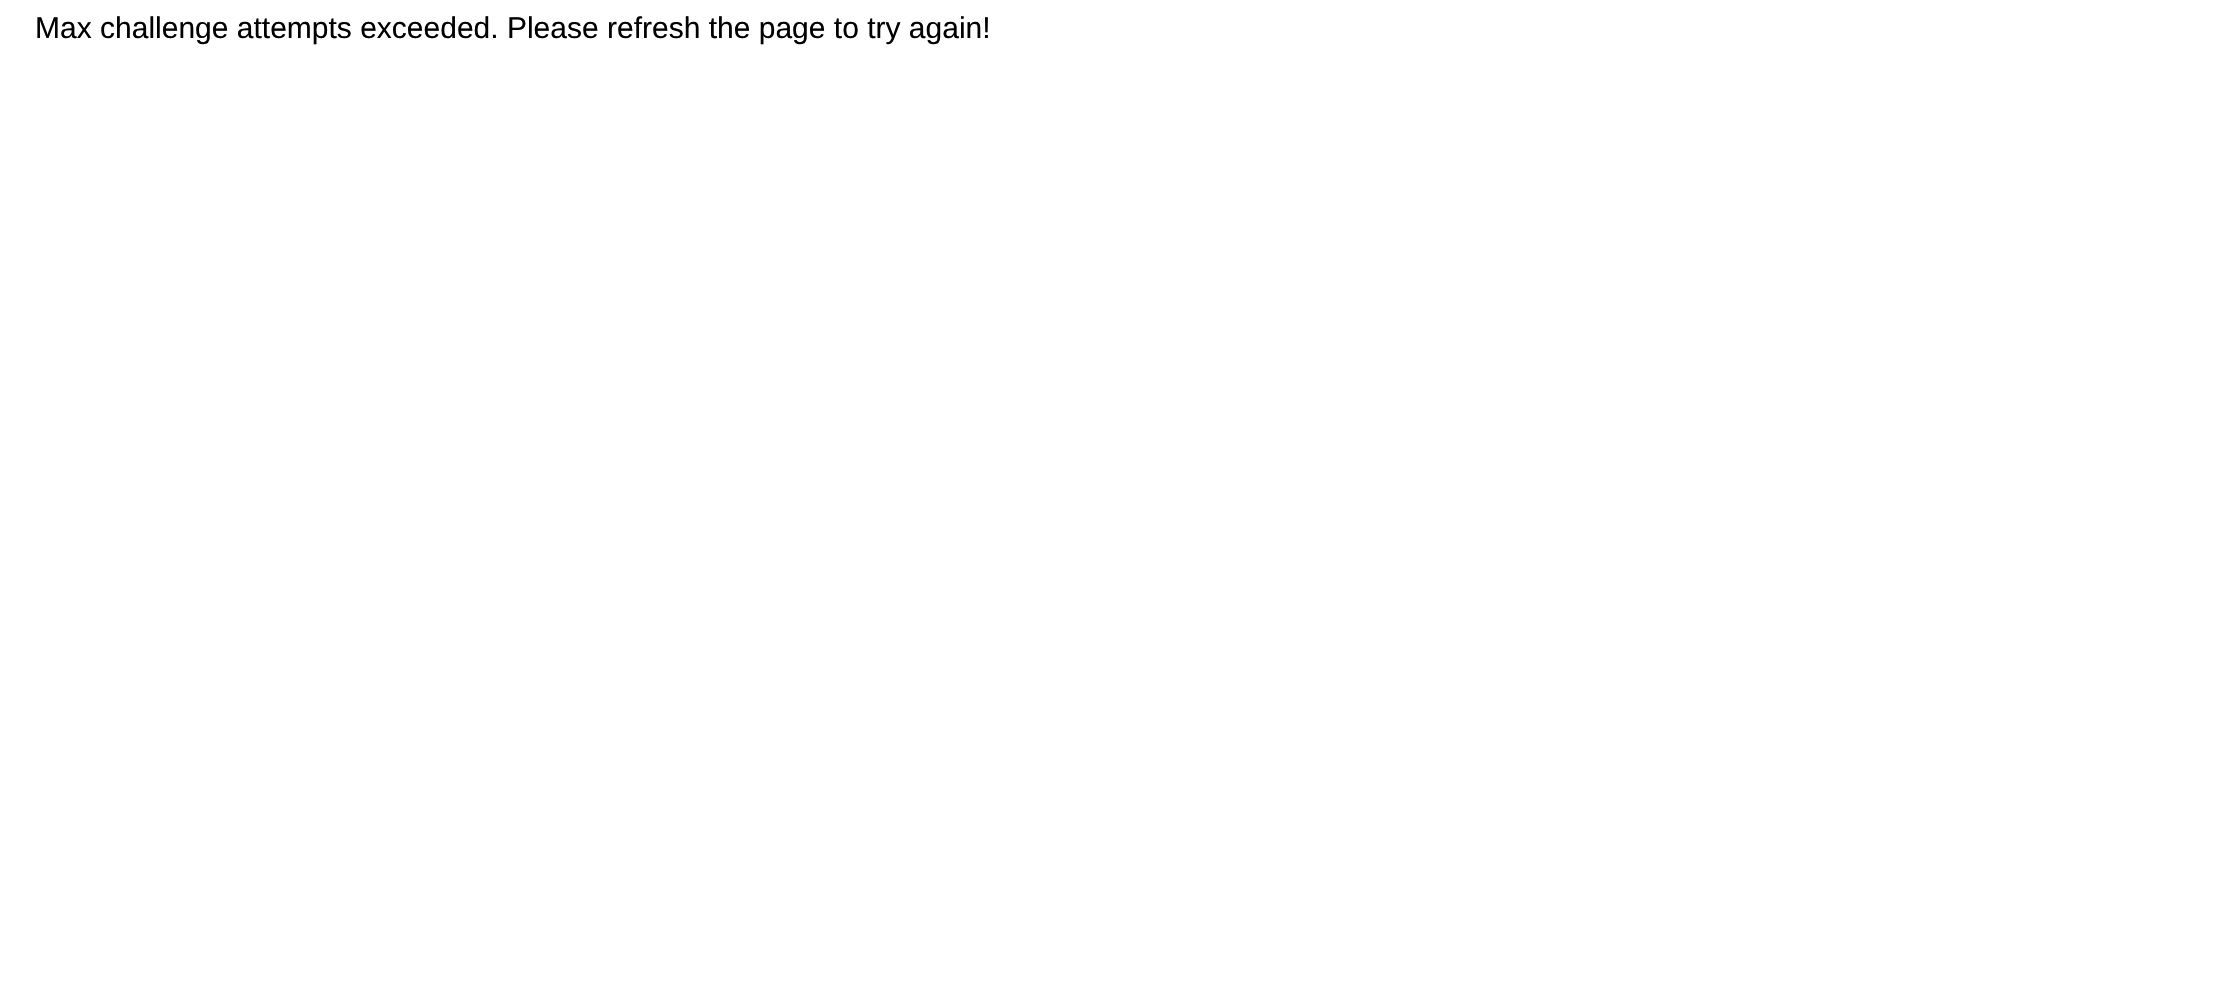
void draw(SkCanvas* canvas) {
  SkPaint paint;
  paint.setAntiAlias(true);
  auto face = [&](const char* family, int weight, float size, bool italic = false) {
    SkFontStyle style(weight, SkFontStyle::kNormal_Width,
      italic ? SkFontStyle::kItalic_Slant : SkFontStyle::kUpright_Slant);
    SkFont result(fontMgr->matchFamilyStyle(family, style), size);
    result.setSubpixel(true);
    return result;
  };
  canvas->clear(0xffffffff);
  auto f0 = face("Liberation Sans", 400, 30);
  paint.setColor(0xff000000);
  canvas->drawString("Max challenge attempts exceeded. Please refresh the page to try again!", 35, 38, f0, paint);
}
